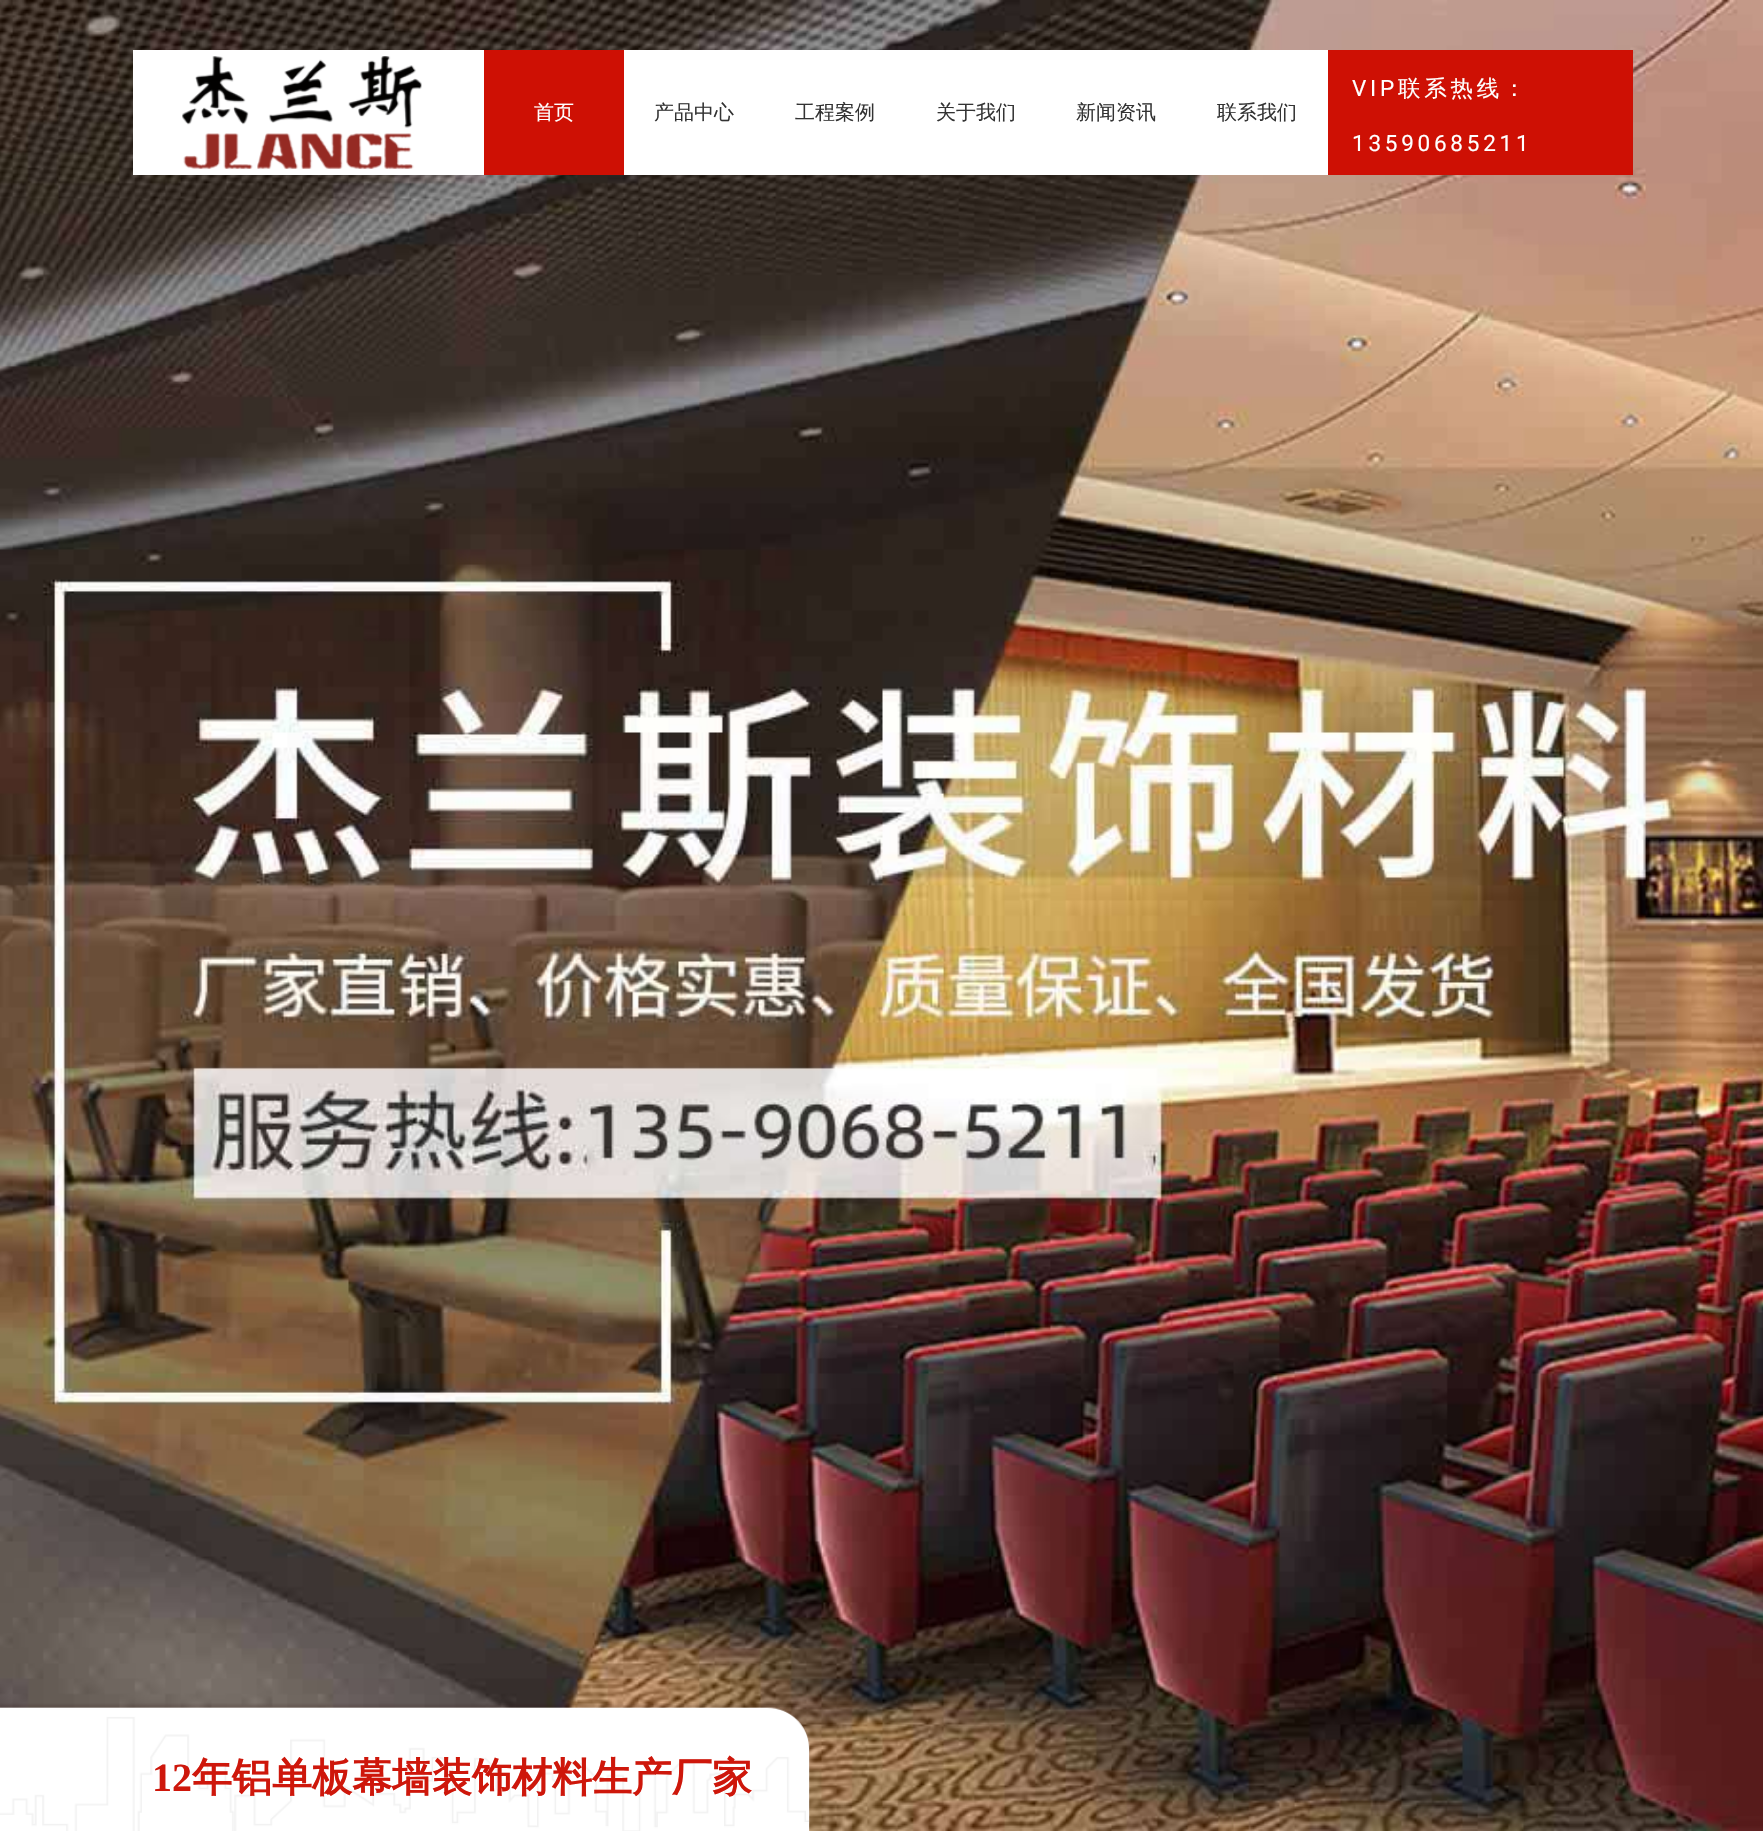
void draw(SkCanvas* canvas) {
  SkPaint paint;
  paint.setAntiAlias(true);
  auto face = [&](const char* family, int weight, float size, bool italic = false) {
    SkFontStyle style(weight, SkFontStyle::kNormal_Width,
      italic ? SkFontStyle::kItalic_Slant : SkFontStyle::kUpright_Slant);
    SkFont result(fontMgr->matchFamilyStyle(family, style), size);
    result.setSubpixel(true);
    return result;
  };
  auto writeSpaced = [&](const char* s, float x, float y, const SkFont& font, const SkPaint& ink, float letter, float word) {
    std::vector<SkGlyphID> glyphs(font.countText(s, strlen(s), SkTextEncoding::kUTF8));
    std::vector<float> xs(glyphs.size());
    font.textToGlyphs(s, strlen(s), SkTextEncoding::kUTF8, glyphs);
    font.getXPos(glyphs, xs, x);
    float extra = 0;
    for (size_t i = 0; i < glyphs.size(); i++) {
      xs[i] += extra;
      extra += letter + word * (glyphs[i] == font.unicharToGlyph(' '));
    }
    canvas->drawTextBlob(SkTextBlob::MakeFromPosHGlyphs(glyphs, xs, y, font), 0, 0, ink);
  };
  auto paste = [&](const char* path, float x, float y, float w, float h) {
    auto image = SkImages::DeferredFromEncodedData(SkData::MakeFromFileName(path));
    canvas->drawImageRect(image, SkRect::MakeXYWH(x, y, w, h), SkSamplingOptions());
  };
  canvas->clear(0xffffffff);
  paste("img/2.png", 0, 0, 1763, 1831);
  paint.setColor(0xffffffff);
  canvas->drawRect(SkRect::MakeXYWH(133, 50, 1195, 125), paint);
  paste("img/1.png", 182, 56, 240, 113);
  paint.setColor(0xffce1004);
  canvas->drawRect(SkRect::MakeXYWH(484, 50, 140, 125), paint);
  canvas->drawRect(SkRect::MakeXYWH(1328, 50, 305, 125), paint);
  paste("img/3.png", 0, 1703, 810, 128);
  auto f0 = face("WenQuanYi Zen Hei", 500, 20);
  paint.setColor(0xffffffff);
  canvas->drawString("首页", 534, 119, f0, paint);
  paint.setColor(0xff333333);
  {
    const struct { const char* s; float x, y; } items[] = {
      {"产品中心", 654, 119},
      {"工程案例", 795, 119},
      {"关于我们", 936, 119},
      {"新闻资讯", 1076, 119},
      {"联系我们", 1217, 119},
    };
    for (auto [s, x, y] : items) {
      canvas->drawString(s, x, y, f0, paint);
    }
  }
  auto f1 = face("Roboto", 400, 22.5f);
  paint.setColor(0xffffffff);
  writeSpaced("VIP", 1352, 96, f1, paint, 3.75f, 0);
  auto f2 = face("WenQuanYi Zen Hei", 500, 22.5f);
  writeSpaced("联系热线：", 1398, 96, f2, paint, 3.75f, 0);
  writeSpaced("13590685211", 1352, 151, f1, paint, 3.75f, 0);
  auto f3 = face("Liberation Serif", 700, 40);
  paint.setColor(0xffce170b);
  canvas->drawString("12", 152, 1791, f3, paint);
  auto f4 = face("WenQuanYi Zen Hei", 700, 40);
  canvas->drawString("年铝单板幕墙装饰材料生产厂家", 192, 1791, f4, paint);
}
